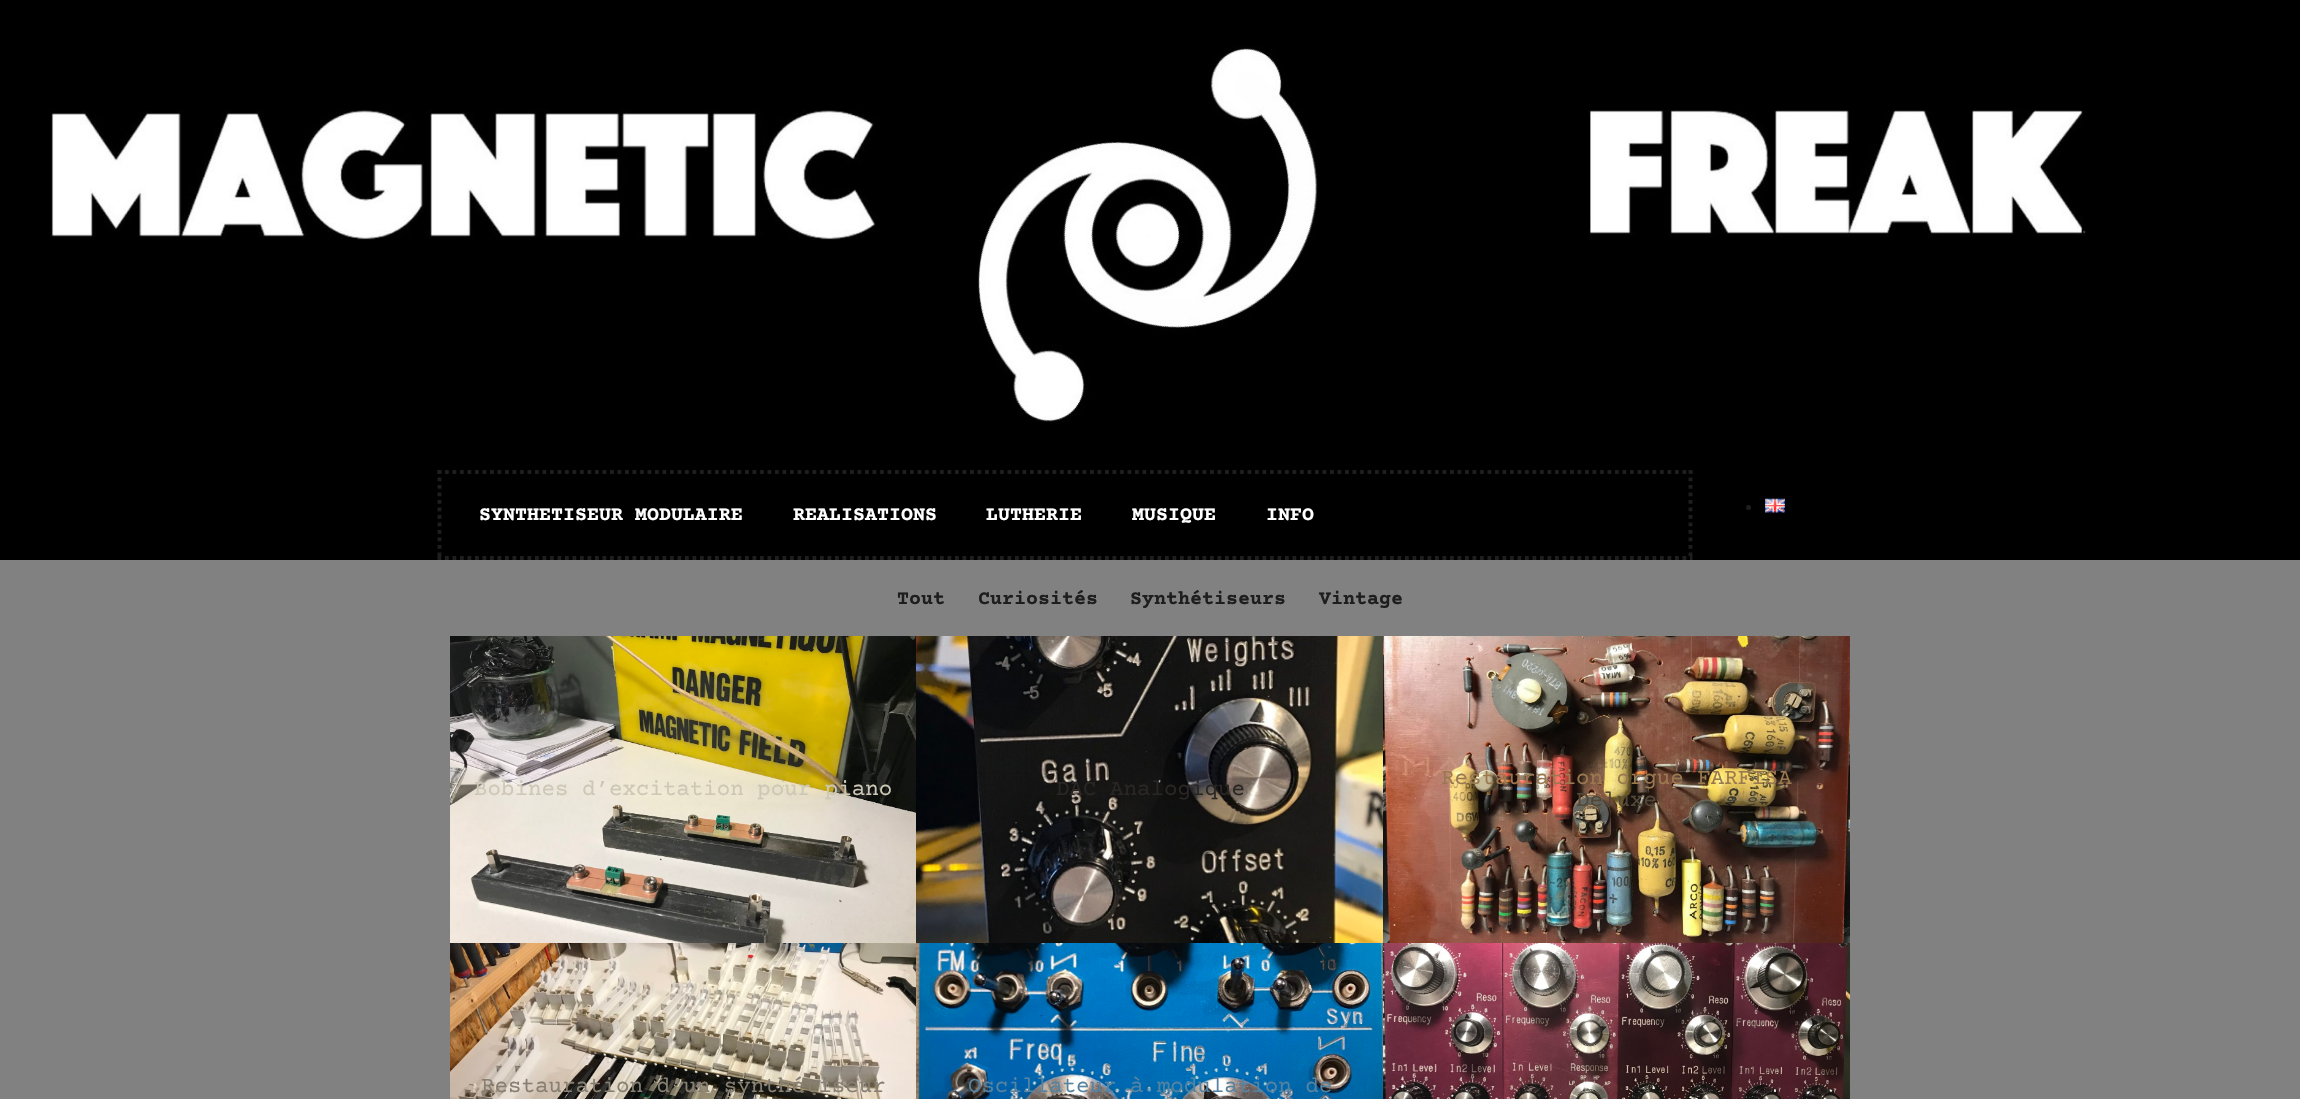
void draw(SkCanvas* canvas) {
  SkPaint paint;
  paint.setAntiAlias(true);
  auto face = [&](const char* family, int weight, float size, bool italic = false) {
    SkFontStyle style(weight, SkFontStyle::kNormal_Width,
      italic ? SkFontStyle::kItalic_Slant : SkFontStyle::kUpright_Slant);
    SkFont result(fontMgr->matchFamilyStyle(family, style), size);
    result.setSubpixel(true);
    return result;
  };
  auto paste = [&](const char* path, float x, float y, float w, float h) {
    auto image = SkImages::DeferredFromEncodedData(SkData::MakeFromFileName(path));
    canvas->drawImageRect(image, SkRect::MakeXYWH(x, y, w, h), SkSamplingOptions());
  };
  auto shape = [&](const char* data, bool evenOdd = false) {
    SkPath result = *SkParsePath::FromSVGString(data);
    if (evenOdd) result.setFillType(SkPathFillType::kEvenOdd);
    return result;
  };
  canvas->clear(0xff818181);
  paint.setColor(0xff000000);
  canvas->drawRect(SkRect::MakeXYWH(0, 0, 2300, 560), paint);
  paste("img/1.png", 50, 110, 826, 130);
  paste("img/2.png", 977, 46, 341, 376);
  paste("img/3.png", 1588, 110, 498, 127);
  paint.setColor(0xff1e1e1e);
  canvas->drawCircle(1748.5f, 507.5f, 2.5f, paint);
  paste("img/4.png", 1765, 498, 20, 15);
  paint.setStroke(true);
  paint.setStrokeWidth(3.8f);
  paint.setPathEffect(SkDashPathEffect::Make({{3.75f, 3.75f}}, 0));
  canvas->drawPath(shape("M437.5 472H1692.5"), paint);
  paint.setPathEffect(nullptr);
  paint.setPathEffect(SkDashPathEffect::Make({{3.75f, 3.75f}}, 0));
  canvas->drawPath(shape("M1690.5 470V560"), paint);
  paint.setPathEffect(nullptr);
  paint.setPathEffect(SkDashPathEffect::Make({{3.75f, 3.75f}}, 0));
  canvas->drawPath(shape("M437.5 558H1692.5"), paint);
  paint.setPathEffect(nullptr);
  paint.setPathEffect(SkDashPathEffect::Make({{3.75f, 3.75f}}, 0));
  canvas->drawPath(shape("M439.5 470V560"), paint);
  paint.setPathEffect(nullptr);
  paste("img/5.png", 450, 636, 466, 307);
  paste("img/6.png", 916, 636, 467, 307);
  paste("img/7.png", 1383, 636, 467, 307);
  paste("img/8.png", 450, 943, 466, 156);
  paste("img/9.png", 916, 943, 467, 156);
  paste("img/10.png", 1383, 943, 467, 156);
  auto f0 = face("Courier Prime", 700, 20);
  paint.setStroke(false);
  paint.setColor(0xffffffff);
  {
    const struct { const char* s; float x, y; } items[] = {
      {"SYNTHETISEUR MODULAIRE", 479, 520},
      {"REALISATIONS", 793, 520},
      {"LUTHERIE", 986, 520},
      {"MUSIQUE", 1132, 520},
      {"INFO", 1266, 520},
    };
    for (auto [s, x, y] : items) {
      canvas->drawString(s, x, y, f0, paint);
    }
  }
  paint.setColor(0xff1e1e1e);
  {
    const struct { const char* s; float x, y; } items[] = {
      {"Tout", 897, 604},
      {"Curiosités", 978, 604},
      {"Synthétiseurs", 1130, 604},
      {"Vintage", 1319, 604},
    };
    for (auto [s, x, y] : items) {
      canvas->drawString(s, x, y, f0, paint);
    }
  }
  auto f1 = face("Courier Prime", 400, 22.5f);
  paint.setColor(0xffcdc7b5);
  canvas->drawString("Bobines d’excitation pour piano", 474, 795, f1, paint);
  paint.setColor(0xff292624);
  canvas->drawString("DAC Analogique", 1056, 795, f1, paint);
  paint.setColor(0xff9a7951);
  canvas->drawString("Restauration orgue FARFISA", 1441, 784, f1, paint);
  paint.setColor(0xff534736);
  canvas->drawString("Deluxe", 1576, 806, f1, paint);
  paint.setColor(0xff877f72);
  canvas->drawString("Restauration d’un synthétiseur", 481, 1092, f1, paint);
  paint.setColor(0xff5683a1);
  canvas->drawString("Oscillateur à modulation de", 968, 1092, f1, paint);
}
